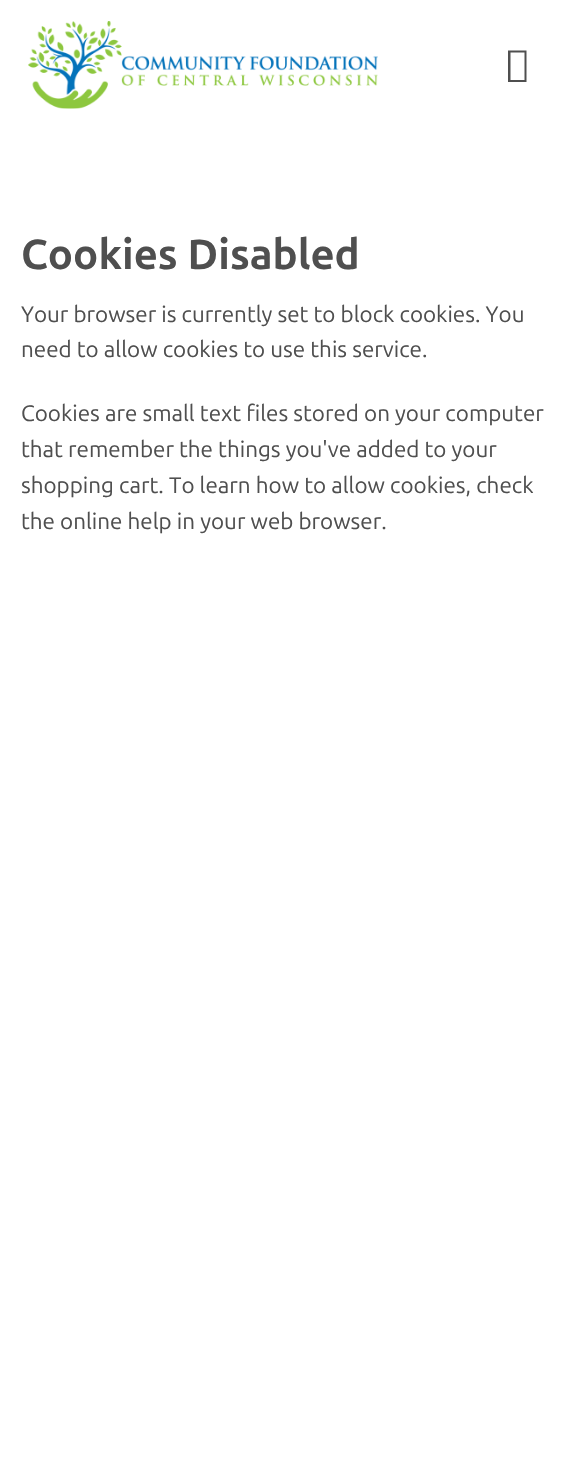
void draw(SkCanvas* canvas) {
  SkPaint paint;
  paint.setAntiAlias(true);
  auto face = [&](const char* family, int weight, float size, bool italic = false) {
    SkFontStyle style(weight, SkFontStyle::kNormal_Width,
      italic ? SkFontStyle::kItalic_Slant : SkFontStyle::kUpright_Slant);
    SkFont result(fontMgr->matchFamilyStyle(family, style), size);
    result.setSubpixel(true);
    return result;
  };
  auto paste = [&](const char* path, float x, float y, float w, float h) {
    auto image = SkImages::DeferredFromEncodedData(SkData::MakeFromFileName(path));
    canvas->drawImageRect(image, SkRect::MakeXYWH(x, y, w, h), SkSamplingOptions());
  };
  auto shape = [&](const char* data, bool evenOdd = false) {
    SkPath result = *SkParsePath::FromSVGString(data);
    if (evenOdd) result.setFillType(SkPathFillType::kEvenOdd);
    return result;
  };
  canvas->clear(0xffffffff);
  paste("img/1.png", 28, 21, 350, 88);
  paint.setColor(0xff4f4f4f);
  canvas->drawPath(shape("M508 82V50.5H526.5V82ZM510.5 80H524.5V52.5H510.5Z"), paint);
  auto f0 = face("Ubuntu", 700, 42);
  canvas->drawString("Cookies Disabled", 21, 269, f0, paint);
  auto f1 = face("Ubuntu", 400, 22.4f);
  {
    const struct { const char* s; float x, y; } items[] = {
      {"Your browser is currently set to block cookies. You", 21, 322},
      {"need to allow cookies to use this service.", 21, 357},
      {"Cookies are small text files stored on your computer", 21, 421},
      {"that remember the things you've added to your", 21, 457},
      {"shopping cart. To learn how to allow cookies, check", 21, 493},
      {"the online help in your web browser.", 21, 529},
    };
    for (auto [s, x, y] : items) {
      canvas->drawString(s, x, y, f1, paint);
    }
  }
}
